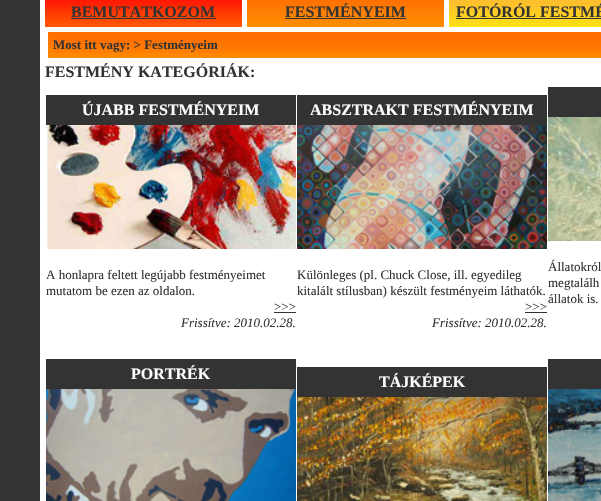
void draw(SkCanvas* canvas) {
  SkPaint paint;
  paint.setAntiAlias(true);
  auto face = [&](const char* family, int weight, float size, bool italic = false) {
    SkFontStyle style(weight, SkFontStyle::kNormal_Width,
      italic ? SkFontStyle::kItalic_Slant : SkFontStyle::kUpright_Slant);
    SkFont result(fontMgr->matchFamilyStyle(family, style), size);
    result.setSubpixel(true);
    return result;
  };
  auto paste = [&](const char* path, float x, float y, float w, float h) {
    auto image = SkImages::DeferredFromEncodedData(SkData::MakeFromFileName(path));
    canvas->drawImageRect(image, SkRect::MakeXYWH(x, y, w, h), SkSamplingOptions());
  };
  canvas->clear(0xff333333);
  paint.setColor(0xffffffff);
  canvas->drawRect(SkRect::MakeXYWH(40, 0, 561, 501), paint);
  paste("img/1.png", 45, 0, 197, 27);
  paint.setColor(0xff333333);
  canvas->drawRect(SkRect::MakeXYWH(71, 18, 145, 1), paint);
  paste("img/2.png", 247, 0, 197, 27);
  canvas->drawRect(SkRect::MakeXYWH(285, 18, 121, 1), paint);
  paste("img/3.png", 449, 0, 152, 27);
  canvas->drawRect(SkRect::MakeXYWH(456, 18, 145, 1), paint);
  paste("img/4.png", 48, 32, 553, 26);
  paste("img/5.png", 53, 37, 548, 16);
  canvas->drawRect(SkRect::MakeXYWH(46, 95, 250, 30), paint);
  paste("img/6.png", 46, 125, 250, 124);
  canvas->drawRect(SkRect::MakeXYWH(274, 312, 22, 1), paint);
  canvas->drawRect(SkRect::MakeXYWH(297, 95, 250, 30), paint);
  paste("img/7.png", 297, 125, 250, 124);
  canvas->drawRect(SkRect::MakeXYWH(525, 312, 22, 1), paint);
  canvas->drawRect(SkRect::MakeXYWH(548, 87, 53, 30), paint);
  paste("img/8.png", 548, 117, 53, 124);
  canvas->drawRect(SkRect::MakeXYWH(46, 359, 250, 30), paint);
  paste("img/9.png", 46, 389, 250, 112);
  canvas->drawRect(SkRect::MakeXYWH(297, 367, 250, 30), paint);
  paste("img/10.png", 297, 397, 250, 104);
  canvas->drawRect(SkRect::MakeXYWH(548, 359, 53, 30), paint);
  paste("img/11.png", 548, 389, 53, 112);
  auto f0 = face("Liberation Serif", 700, 16);
  {
    const struct { const char* s; float x, y; } items[] = {
      {"BEMUTATKOZOM", 71, 17},
      {"FESTMÉNYEIM", 285, 17},
      {"FOTÓRÓL FESTMÉ", 456, 17},
    };
    for (auto [s, x, y] : items) {
      canvas->drawString(s, x, y, f0, paint);
    }
  }
  auto f1 = face("Liberation Serif", 700, 13);
  canvas->drawString("Most itt vagy: > Festményeim", 53, 49, f1, paint);
  canvas->drawString("FESTMÉNY KATEGÓRIÁK:", 45, 77, f0, paint);
  paint.setColor(0xffffffff);
  canvas->drawString("ÚJABB FESTMÉNYEIM", 82, 115, f0, paint);
  auto f2 = face("Liberation Serif", 400, 13);
  paint.setColor(0xff333333);
  {
    const struct { const char* s; float x, y; } items[] = {
      {"A honlapra feltett legújabb festményeimet", 46, 279},
      {"mutatom be ezen az oldalon.", 46, 295},
      {">>>", 274, 311},
    };
    for (auto [s, x, y] : items) {
      canvas->drawString(s, x, y, f2, paint);
    }
  }
  auto f3 = face("Liberation Serif", 400, 13, true);
  canvas->drawString("Frissítve: 2010.02.28.", 181, 327, f3, paint);
  paint.setColor(0xffffffff);
  canvas->drawString("ABSZTRAKT FESTMÉNYEIM", 310, 115, f0, paint);
  paint.setColor(0xff333333);
  {
    const struct { const char* s; float x, y; } items[] = {
      {"Különleges (pl. Chuck Close, ill. egyedileg", 297, 279},
      {"kitalált stílusban) készült festményeim láthatók.", 297, 295},
      {">>>", 525, 311},
    };
    for (auto [s, x, y] : items) {
      canvas->drawString(s, x, y, f2, paint);
    }
  }
  canvas->drawString("Frissítve: 2010.02.28.", 432, 327, f3, paint);
  {
    const struct { const char* s; float x, y; } items[] = {
      {"Állatokról", 548, 271},
      {"megtalálh", 548, 287},
      {"állatok is.", 548, 303},
    };
    for (auto [s, x, y] : items) {
      canvas->drawString(s, x, y, f2, paint);
    }
  }
  paint.setColor(0xffffffff);
  canvas->drawString("PORTRÉK", 131, 379, f0, paint);
  canvas->drawString("TÁJKÉPEK", 379, 387, f0, paint);
}
